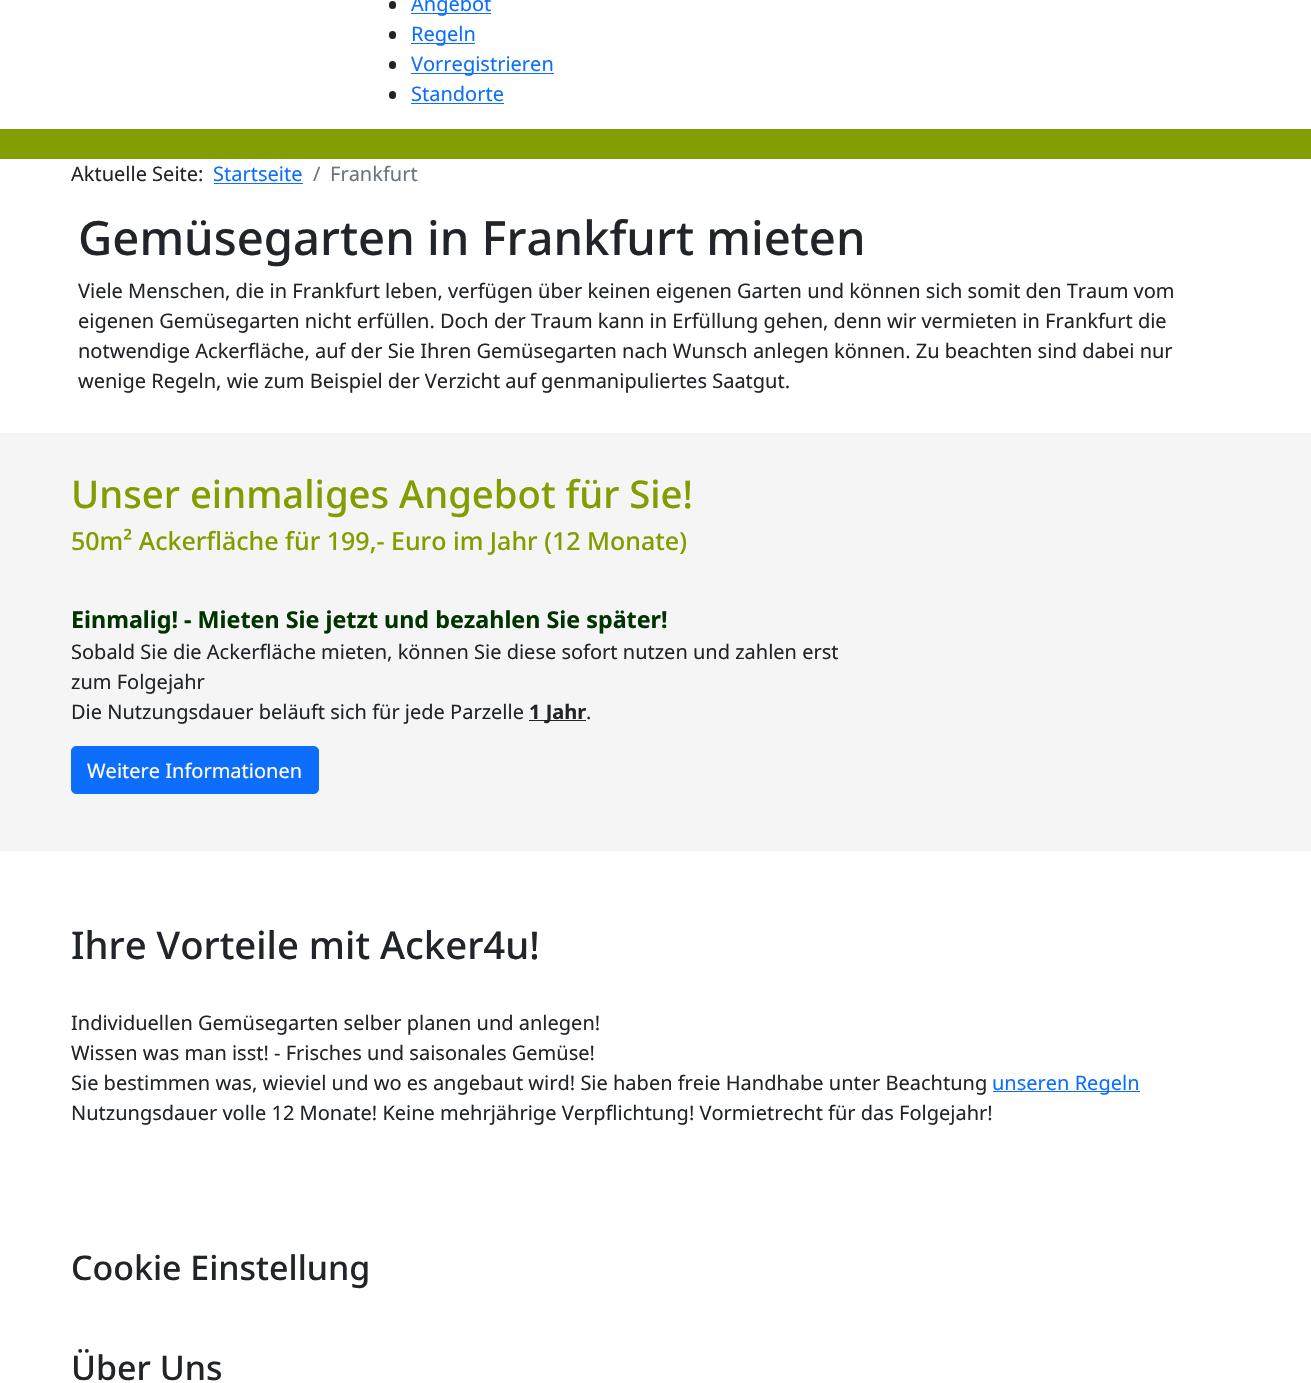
void draw(SkCanvas* canvas) {
  SkPaint paint;
  paint.setAntiAlias(true);
  auto face = [&](const char* family, int weight, float size, bool italic = false) {
    SkFontStyle style(weight, SkFontStyle::kNormal_Width,
      italic ? SkFontStyle::kItalic_Slant : SkFontStyle::kUpright_Slant);
    SkFont result(fontMgr->matchFamilyStyle(family, style), size);
    result.setSubpixel(true);
    return result;
  };
  canvas->clear(0xffffffff);
  paint.setColor(0xff212529);
  canvas->drawRoundRect(SkRect::MakeXYWH(389, 1, 7, 8), 3.5f, 3.5f, paint);
  paint.setColor(0xff0d6efd);
  canvas->drawRect(SkRect::MakeXYWH(411, 13, 80, 1), paint);
  paint.setColor(0xff212529);
  canvas->drawRoundRect(SkRect::MakeXYWH(389, 31, 7, 8), 3.5f, 3.5f, paint);
  paint.setColor(0xff0d6efd);
  canvas->drawRect(SkRect::MakeXYWH(411, 43, 64, 1), paint);
  paint.setColor(0xff212529);
  canvas->drawRoundRect(SkRect::MakeXYWH(389, 61, 7, 8), 3.5f, 3.5f, paint);
  paint.setColor(0xff0d6efd);
  canvas->drawRect(SkRect::MakeXYWH(411, 73, 143, 1), paint);
  paint.setColor(0xff212529);
  canvas->drawRoundRect(SkRect::MakeXYWH(389, 91, 7, 8), 3.5f, 3.5f, paint);
  {
    const struct { float x, y, w, h; SkColor color; } items[] = {
      {411, 103, 93, 1, 0xff0d6efd},
      {0, 129, 1311, 30, 0xff819d00},
      {214, 183, 89, 1, 0xff0d6efd},
      {0, 433, 1311, 418, 0xfff5f5f5},
      {529, 720, 57, 1, 0xff212529},
    };
    for (auto [x, y, w, h, color] : items) {
      paint.setColor(color);
      canvas->drawRect(SkRect::MakeXYWH(x, y, w, h), paint);
    }
  }
  paint.setColor(0xff0d6efd);
  canvas->drawRoundRect(SkRect::MakeXYWH(71.5f, 746.5f, 247, 47), 4.5f, 4.5f, paint);
  paint.setStroke(true);
  paint.setStrokeWidth(1);
  canvas->drawRoundRect(SkRect::MakeXYWH(71.5f, 746.5f, 247, 47), 4.5f, 4.5f, paint);
  paint.setStroke(false);
  canvas->drawRect(SkRect::MakeXYWH(993, 1091, 147, 1), paint);
  auto f0 = face("Noto Sans", 400, 20);
  {
    const struct { const char* s; float x, y; } items[] = {
      {"Angebot", 411, 11},
      {"Regeln", 411, 41},
      {"Vorregistrieren", 411, 71},
      {"Standorte", 411, 101},
    };
    for (auto [s, x, y] : items) {
      canvas->drawString(s, x, y, f0, paint);
    }
  }
  paint.setColor(0xff212529);
  canvas->drawString("Aktuelle Seite:", 71, 181, f0, paint);
  paint.setColor(0xff0d6efd);
  canvas->drawString("Startseite", 213, 181, f0, paint);
  paint.setColor(0xff6c757d);
  canvas->drawString("/", 313, 181, f0, paint);
  canvas->drawString("Frankfurt", 330, 181, f0, paint);
  auto f1 = face("Noto Sans", 500, 47.2f);
  paint.setColor(0xff212529);
  canvas->drawString("Gemüsegarten in Frankfurt mieten", 78, 255, f1, paint);
  {
    const struct { const char* s; float x, y; } items[] = {
      {"Viele Menschen, die in Frankfurt leben, verfügen über keinen eigenen Garten und können sich somit den Traum vom", 78, 298},
      {"eigenen Gemüsegarten nicht erfüllen. Doch der Traum kann in Erfüllung gehen, denn wir vermieten in Frankfurt die", 78, 328},
      {"notwendige Ackerfläche, auf der Sie Ihren Gemüsegarten nach Wunsch anlegen können. Zu beachten sind dabei nur", 78, 358},
      {"wenige Regeln, wie zum Beispiel der Verzicht auf genmanipuliertes Saatgut.", 78, 388},
    };
    for (auto [s, x, y] : items) {
      canvas->drawString(s, x, y, f0, paint);
    }
  }
  auto f2 = face("Noto Sans", 500, 38.25f);
  paint.setColor(0xff819d00);
  canvas->drawString("Unser einmaliges Angebot für Sie!", 71, 508, f2, paint);
  auto f3 = face("Noto Sans", 500, 25);
  canvas->drawString("50m² Ackerfläche für 199,- Euro im Jahr (12 Monate)", 71, 550, f3, paint);
  auto f4 = face("Noto Sans", 700, 23.3f);
  paint.setColor(0xff003300);
  canvas->drawString("Einmalig! - Mieten Sie jetzt und bezahlen Sie später!", 71, 628, f4, paint);
  paint.setColor(0xff212529);
  {
    const struct { const char* s; float x, y; } items[] = {
      {"Sobald Sie die Ackerfläche mieten, können Sie diese sofort nutzen und zahlen erst", 71, 659},
      {"zum Folgejahr", 71, 689},
      {"Die Nutzungsdauer beläuft sich für jede Parzelle", 71, 719},
    };
    for (auto [s, x, y] : items) {
      canvas->drawString(s, x, y, f0, paint);
    }
  }
  auto f5 = face("Noto Sans", 700, 20);
  canvas->drawString("1 Jahr", 529, 719, f5, paint);
  canvas->drawString(".", 586, 719, f0, paint);
  paint.setColor(0xffffffff);
  canvas->drawString("Weitere Informationen", 87, 778, f0, paint);
  paint.setColor(0xff212529);
  canvas->drawString("Ihre Vorteile mit Acker4u!", 71, 959, f2, paint);
  {
    const struct { const char* s; float x, y; } items[] = {
      {"Individuellen Gemüsegarten selber planen und anlegen!", 71, 1030},
      {"Wissen was man isst! - Frisches und saisonales Gemüse!", 71, 1060},
      {"Sie bestimmen was, wieviel und wo es angebaut wird! Sie haben freie Handhabe unter Beachtung", 71, 1090},
    };
    for (auto [s, x, y] : items) {
      canvas->drawString(s, x, y, f0, paint);
    }
  }
  paint.setColor(0xff0d6efd);
  canvas->drawString("unseren Regeln", 992, 1090, f0, paint);
  paint.setColor(0xff212529);
  canvas->drawString("Nutzungsdauer volle 12 Monate! Keine mehrjährige Verpflichtung! Vormietrecht für das Folgejahr!", 71, 1120, f0, paint);
  auto f6 = face("Noto Sans", 500, 33.9f);
  canvas->drawString("Cookie Einstellung", 71, 1280, f6, paint);
  canvas->drawString("Über Uns", 71, 1380, f6, paint);
}
